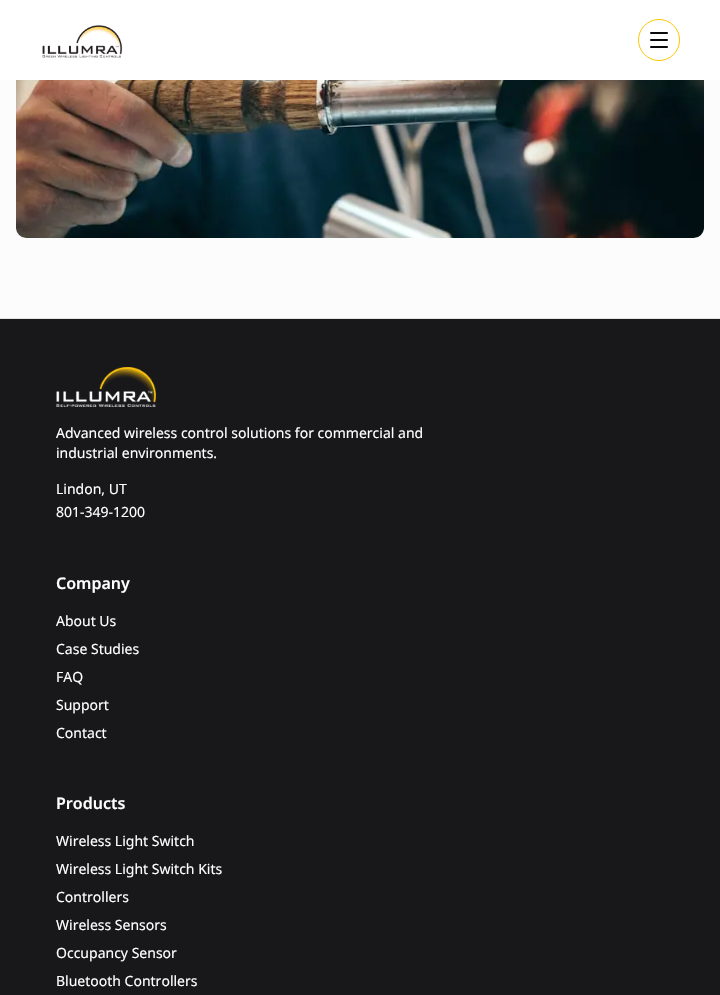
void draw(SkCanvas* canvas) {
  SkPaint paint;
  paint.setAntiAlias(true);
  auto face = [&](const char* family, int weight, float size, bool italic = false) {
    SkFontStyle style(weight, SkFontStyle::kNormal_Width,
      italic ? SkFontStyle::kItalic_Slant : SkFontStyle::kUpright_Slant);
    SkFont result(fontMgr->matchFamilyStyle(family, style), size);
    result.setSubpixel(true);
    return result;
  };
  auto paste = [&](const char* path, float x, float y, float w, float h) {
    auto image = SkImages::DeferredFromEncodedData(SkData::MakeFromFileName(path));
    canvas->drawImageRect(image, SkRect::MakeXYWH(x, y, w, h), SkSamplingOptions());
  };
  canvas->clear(0xfffcfcfc);
  paint.setColor(0xfff4f4f5);
  canvas->drawRoundRect(SkRect::MakeXYWH(16, -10, 688, 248), 10, 10, paint);
  paste("img/1.png", 16, 80, 688, 158);
  paint.setColor(0xffffffff);
  canvas->drawRect(SkRect::MakeXYWH(0, 0, 720, 80), paint);
  paste("img/2.png", 42, 25, 81, 33);
  paint.setStroke(true);
  paint.setStrokeWidth(1);
  paint.setColor(0xfffdc700);
  canvas->drawCircle(659, 40, 20.5f, paint);
  paste("img/3.png", 650, 32, 18, 16);
  paint.setStroke(false);
  paint.setColor(0xff18181b);
  canvas->drawRect(SkRect::MakeXYWH(0, 319, 720, 676), paint);
  paint.setColor(0xffe4e4e7);
  canvas->drawRect(SkRect::MakeXYWH(0, 318, 720, 1), paint);
  paste("img/4.png", 56, 367, 100, 40);
  auto f0 = face("Noto Sans", 400, 14);
  paint.setColor(0xffffffff);
  {
    const struct { const char* s; float x, y; } items[] = {
      {"Advanced wireless control solutions for commercial and", 56, 438},
      {"industrial environments.", 56, 458},
      {"Lindon, UT", 56, 494},
      {"801-349-1200", 56, 517},
    };
    for (auto [s, x, y] : items) {
      canvas->drawString(s, x, y, f0, paint);
    }
  }
  auto f1 = face("Noto Sans", 600, 16);
  canvas->drawString("Company", 56, 589, f1, paint);
  {
    const struct { const char* s; float x, y; } items[] = {
      {"About Us", 56, 626},
      {"Case Studies", 56, 654},
      {"FAQ", 56, 682},
      {"Support", 56, 710},
      {"Contact", 56, 738},
    };
    for (auto [s, x, y] : items) {
      canvas->drawString(s, x, y, f0, paint);
    }
  }
  canvas->drawString("Products", 56, 809, f1, paint);
  {
    const struct { const char* s; float x, y; } items[] = {
      {"Wireless Light Switch", 56, 846},
      {"Wireless Light Switch Kits", 56, 874},
      {"Controllers", 56, 902},
      {"Wireless Sensors", 56, 930},
      {"Occupancy Sensor", 56, 958},
      {"Bluetooth Controllers", 56, 986},
    };
    for (auto [s, x, y] : items) {
      canvas->drawString(s, x, y, f0, paint);
    }
  }
}
